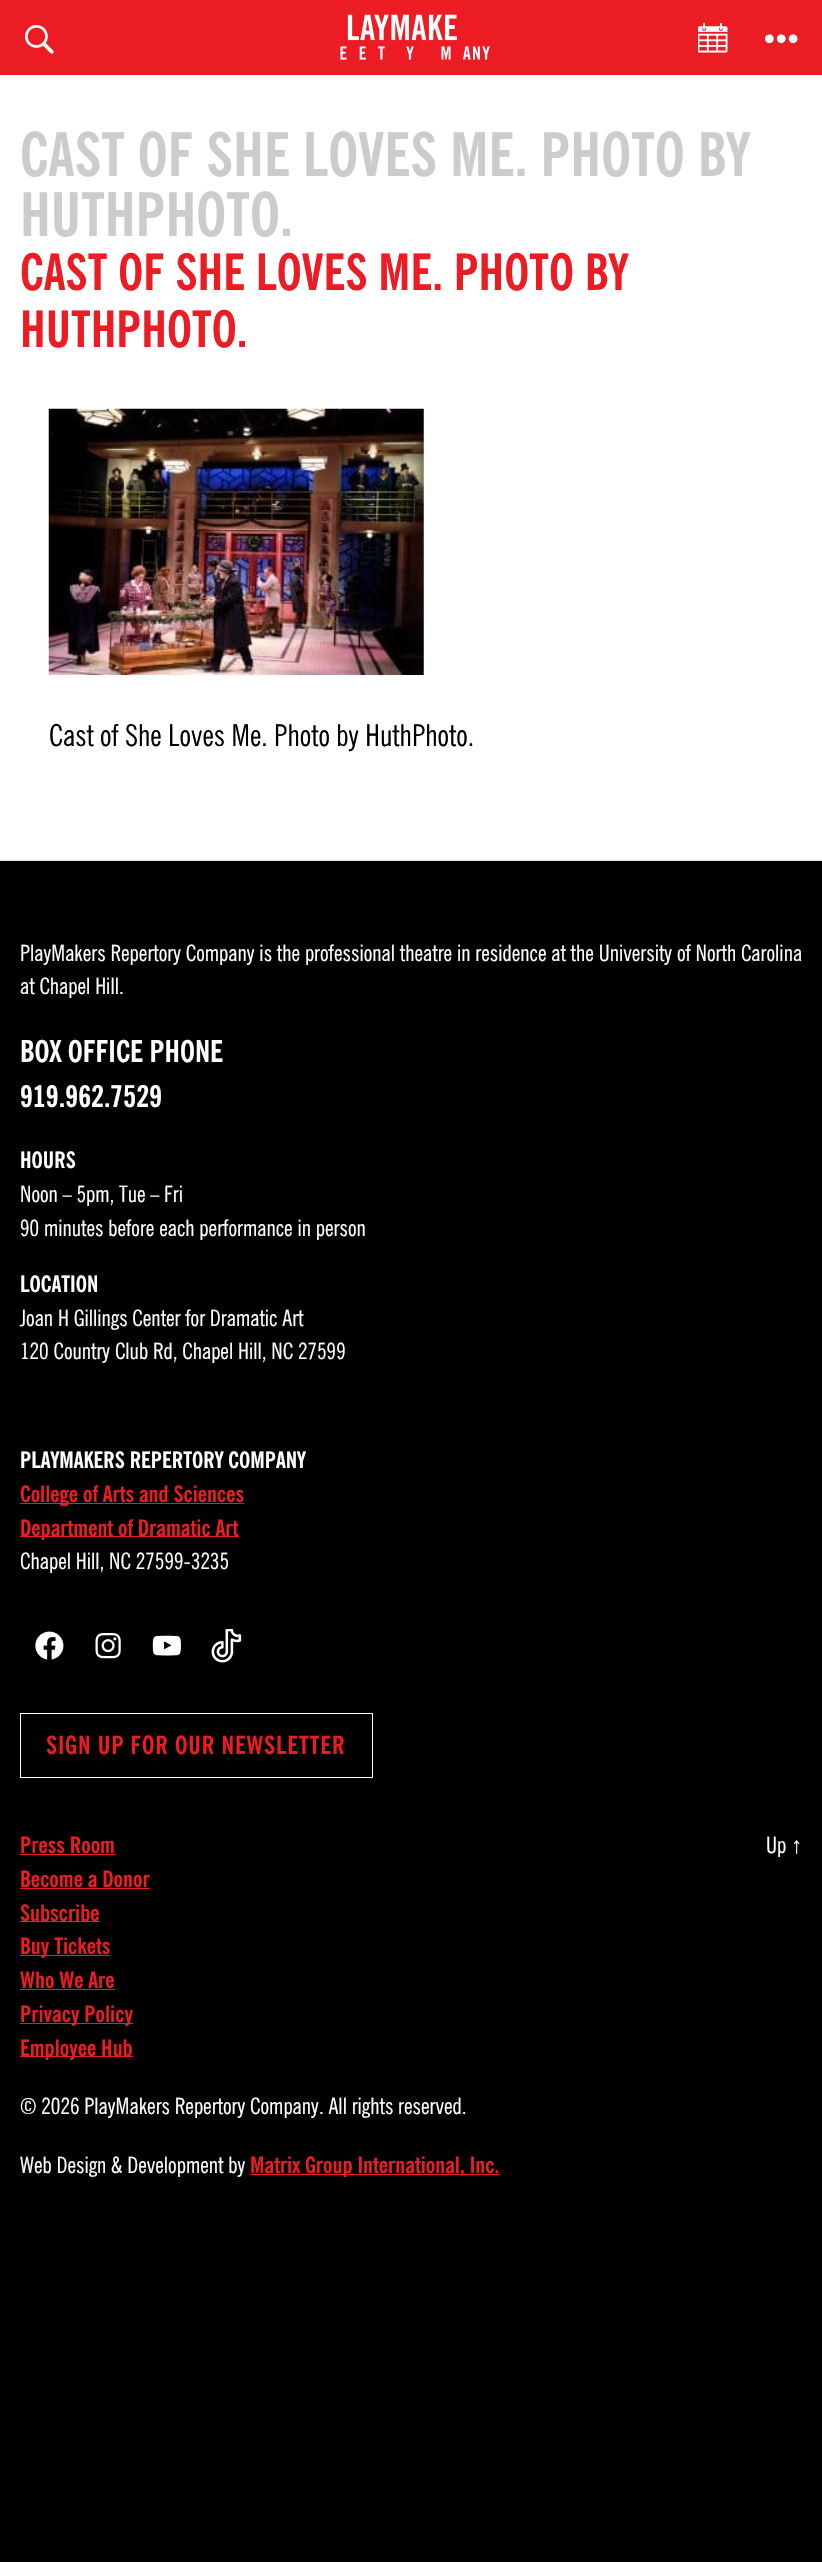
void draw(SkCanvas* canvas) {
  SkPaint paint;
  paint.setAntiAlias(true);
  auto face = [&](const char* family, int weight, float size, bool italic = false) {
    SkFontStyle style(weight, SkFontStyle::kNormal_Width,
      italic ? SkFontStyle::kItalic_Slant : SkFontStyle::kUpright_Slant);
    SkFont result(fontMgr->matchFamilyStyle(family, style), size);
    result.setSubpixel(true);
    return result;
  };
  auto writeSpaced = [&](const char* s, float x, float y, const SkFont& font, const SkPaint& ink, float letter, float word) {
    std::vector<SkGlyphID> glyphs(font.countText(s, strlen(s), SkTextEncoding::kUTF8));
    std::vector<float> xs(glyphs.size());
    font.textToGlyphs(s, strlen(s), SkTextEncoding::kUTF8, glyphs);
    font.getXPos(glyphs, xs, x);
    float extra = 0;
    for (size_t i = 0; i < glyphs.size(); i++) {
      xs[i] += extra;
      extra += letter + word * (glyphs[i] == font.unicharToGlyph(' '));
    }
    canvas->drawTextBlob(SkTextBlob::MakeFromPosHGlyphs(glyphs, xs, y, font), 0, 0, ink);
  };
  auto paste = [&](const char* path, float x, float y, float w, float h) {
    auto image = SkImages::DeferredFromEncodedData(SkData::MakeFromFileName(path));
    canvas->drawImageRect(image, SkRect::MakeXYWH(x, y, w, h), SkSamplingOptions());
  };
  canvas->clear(0xff000000);
  paint.setColor(0xffeb1c24);
  canvas->drawRect(SkRect::MakeXYWH(0, 0, 822, 75), paint);
  paste("img/1.png", 25, 25, 29, 29);
  paste("img/2.png", 340, 14, 150, 46);
  paste("img/3.png", 698, 23, 30, 30);
  paste("img/4.png", 765, 34, 33, 10);
  paint.setColor(0xffffffff);
  canvas->drawRect(SkRect::MakeXYWH(0, 75, 822, 785), paint);
  paste("img/5.png", 48, 408, 376, 267);
  {
    const struct { float x, y, w, h; SkColor color; } items[] = {
      {0, 860, 822, 1, 0xffdedfdf},
      {20, 1503, 224, 1, 0xffeb1c24},
      {20, 1536, 219, 1, 0xffeb1c24},
    };
    for (auto [x, y, w, h, color] : items) {
      paint.setColor(color);
      canvas->drawRect(SkRect::MakeXYWH(x, y, w, h), paint);
    }
  }
  paste("img/6.png", 35, 1631, 29, 29);
  paste("img/7.png", 95, 1633, 26, 26);
  paste("img/8.png", 152, 1635, 29, 21);
  paste("img/9.png", 211, 1629, 31, 34);
  paint.setStroke(true);
  paint.setStrokeWidth(1);
  paint.setColor(0xffffffff);
  canvas->drawRect(SkRect::MakeXYWH(20.5f, 1713.5f, 352, 64), paint);
  paint.setStroke(false);
  {
    const struct { float x, y, w, h; SkColor color; } items[] = {
      {20, 1854, 95, 1, 0xffeb1c24},
      {20, 1888, 130, 1, 0xffeb1c24},
      {20, 1921, 80, 1, 0xffeb1c24},
      {20, 1955, 90, 1, 0xffeb1c24},
      {20, 1989, 95, 1, 0xffeb1c24},
      {20, 2023, 113, 1, 0xffeb1c24},
      {20, 2056, 113, 1, 0xffeb1c24},
      {250, 2174, 249, 1, 0xffeb1c24},
    };
    for (auto [x, y, w, h, color] : items) {
      paint.setColor(color);
      canvas->drawRect(SkRect::MakeXYWH(x, y, w, h), paint);
    }
  }
  auto f0 = face("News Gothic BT", 700, 60);
  paint.setColor(0xffcccccc);
  canvas->drawString("CAST OF SHE LOVES ME. PHOTO BY", 20, 176, f0, paint);
  canvas->drawString("HUTHPHOTO.", 20, 236, f0, paint);
  auto f1 = face("News Gothic BT", 700, 50);
  paint.setColor(0xffeb1c24);
  canvas->drawString("CAST OF SHE LOVES ME. PHOTO BY", 20, 290, f1, paint);
  canvas->drawString("HUTHPHOTO.", 20, 347, f1, paint);
  auto f2 = face("News Gothic BT", 400, 30);
  paint.setColor(0xff000000);
  canvas->drawString("Cast of She Loves Me. Photo by HuthPhoto.", 49, 746, f2, paint);
  auto f3 = face("News Gothic BT", 400, 22.5f);
  paint.setColor(0xffffffff);
  canvas->drawString("PlayMakers Repertory Company is the professional theatre in residence at the University of North Carolina", 20, 961, f3, paint);
  canvas->drawString("at Chapel Hill.", 20, 994, f3, paint);
  auto f4 = face("News Gothic BT", 700, 30);
  canvas->drawString("BOX OFFICE PHONE", 20, 1062, f4, paint);
  canvas->drawString("919.962.7529", 20, 1107, f4, paint);
  auto f5 = face("News Gothic BT", 700, 22.5f);
  canvas->drawString("HOURS", 20, 1168, f5, paint);
  canvas->drawString("Noon – 5pm, Tue – Fri", 20, 1202, f3, paint);
  canvas->drawString("90 minutes before each performance in person", 20, 1236, f3, paint);
  canvas->drawString("LOCATION", 20, 1292, f5, paint);
  canvas->drawString("Joan H Gillings Center for Dramatic Art", 20, 1326, f3, paint);
  canvas->drawString("120 Country Club Rd, Chapel Hill, NC 27599", 20, 1359, f3, paint);
  canvas->drawString("PLAYMAKERS REPERTORY COMPANY", 20, 1468, f5, paint);
  paint.setColor(0xffeb1c24);
  canvas->drawString("College of Arts and Sciences", 20, 1502, f5, paint);
  canvas->drawString("Department of Dramatic Art", 20, 1536, f5, paint);
  paint.setColor(0xffffffff);
  canvas->drawString("Chapel Hill, NC 27599-3235", 20, 1569, f3, paint);
  auto f6 = face("News Gothic BT", 700, 25);
  paint.setColor(0xffeb1c24);
  writeSpaced("SIGN UP FOR OUR NEWSLETTER", 46, 1754, f6, paint, 0.8f, 0);
  {
    const struct { const char* s; float x, y; } items[] = {
      {"Press Room", 20, 1853},
      {"Become a Donor", 20, 1887},
      {"Subscribe", 20, 1921},
      {"Buy Tickets", 20, 1954},
      {"Who We Are", 20, 1988},
      {"Privacy Policy", 20, 2022},
      {"Employee Hub", 20, 2056},
    };
    for (auto [s, x, y] : items) {
      canvas->drawString(s, x, y, f5, paint);
    }
  }
  paint.setColor(0xffffffff);
  canvas->drawString("© 2026 PlayMakers Repertory Company. All rights reserved.", 20, 2114, f3, paint);
  canvas->drawString("Web Design & Development by", 20, 2173, f3, paint);
  paint.setColor(0xffeb1c24);
  canvas->drawString("Matrix Group International, Inc.", 250, 2173, f5, paint);
  paint.setColor(0xffffffff);
  canvas->drawString("Up", 766, 1853, f3, paint);
  auto f7 = face("Liberation Sans", 400, 22.5f);
  canvas->drawString("↑", 791, 1853, f7, paint);
}
